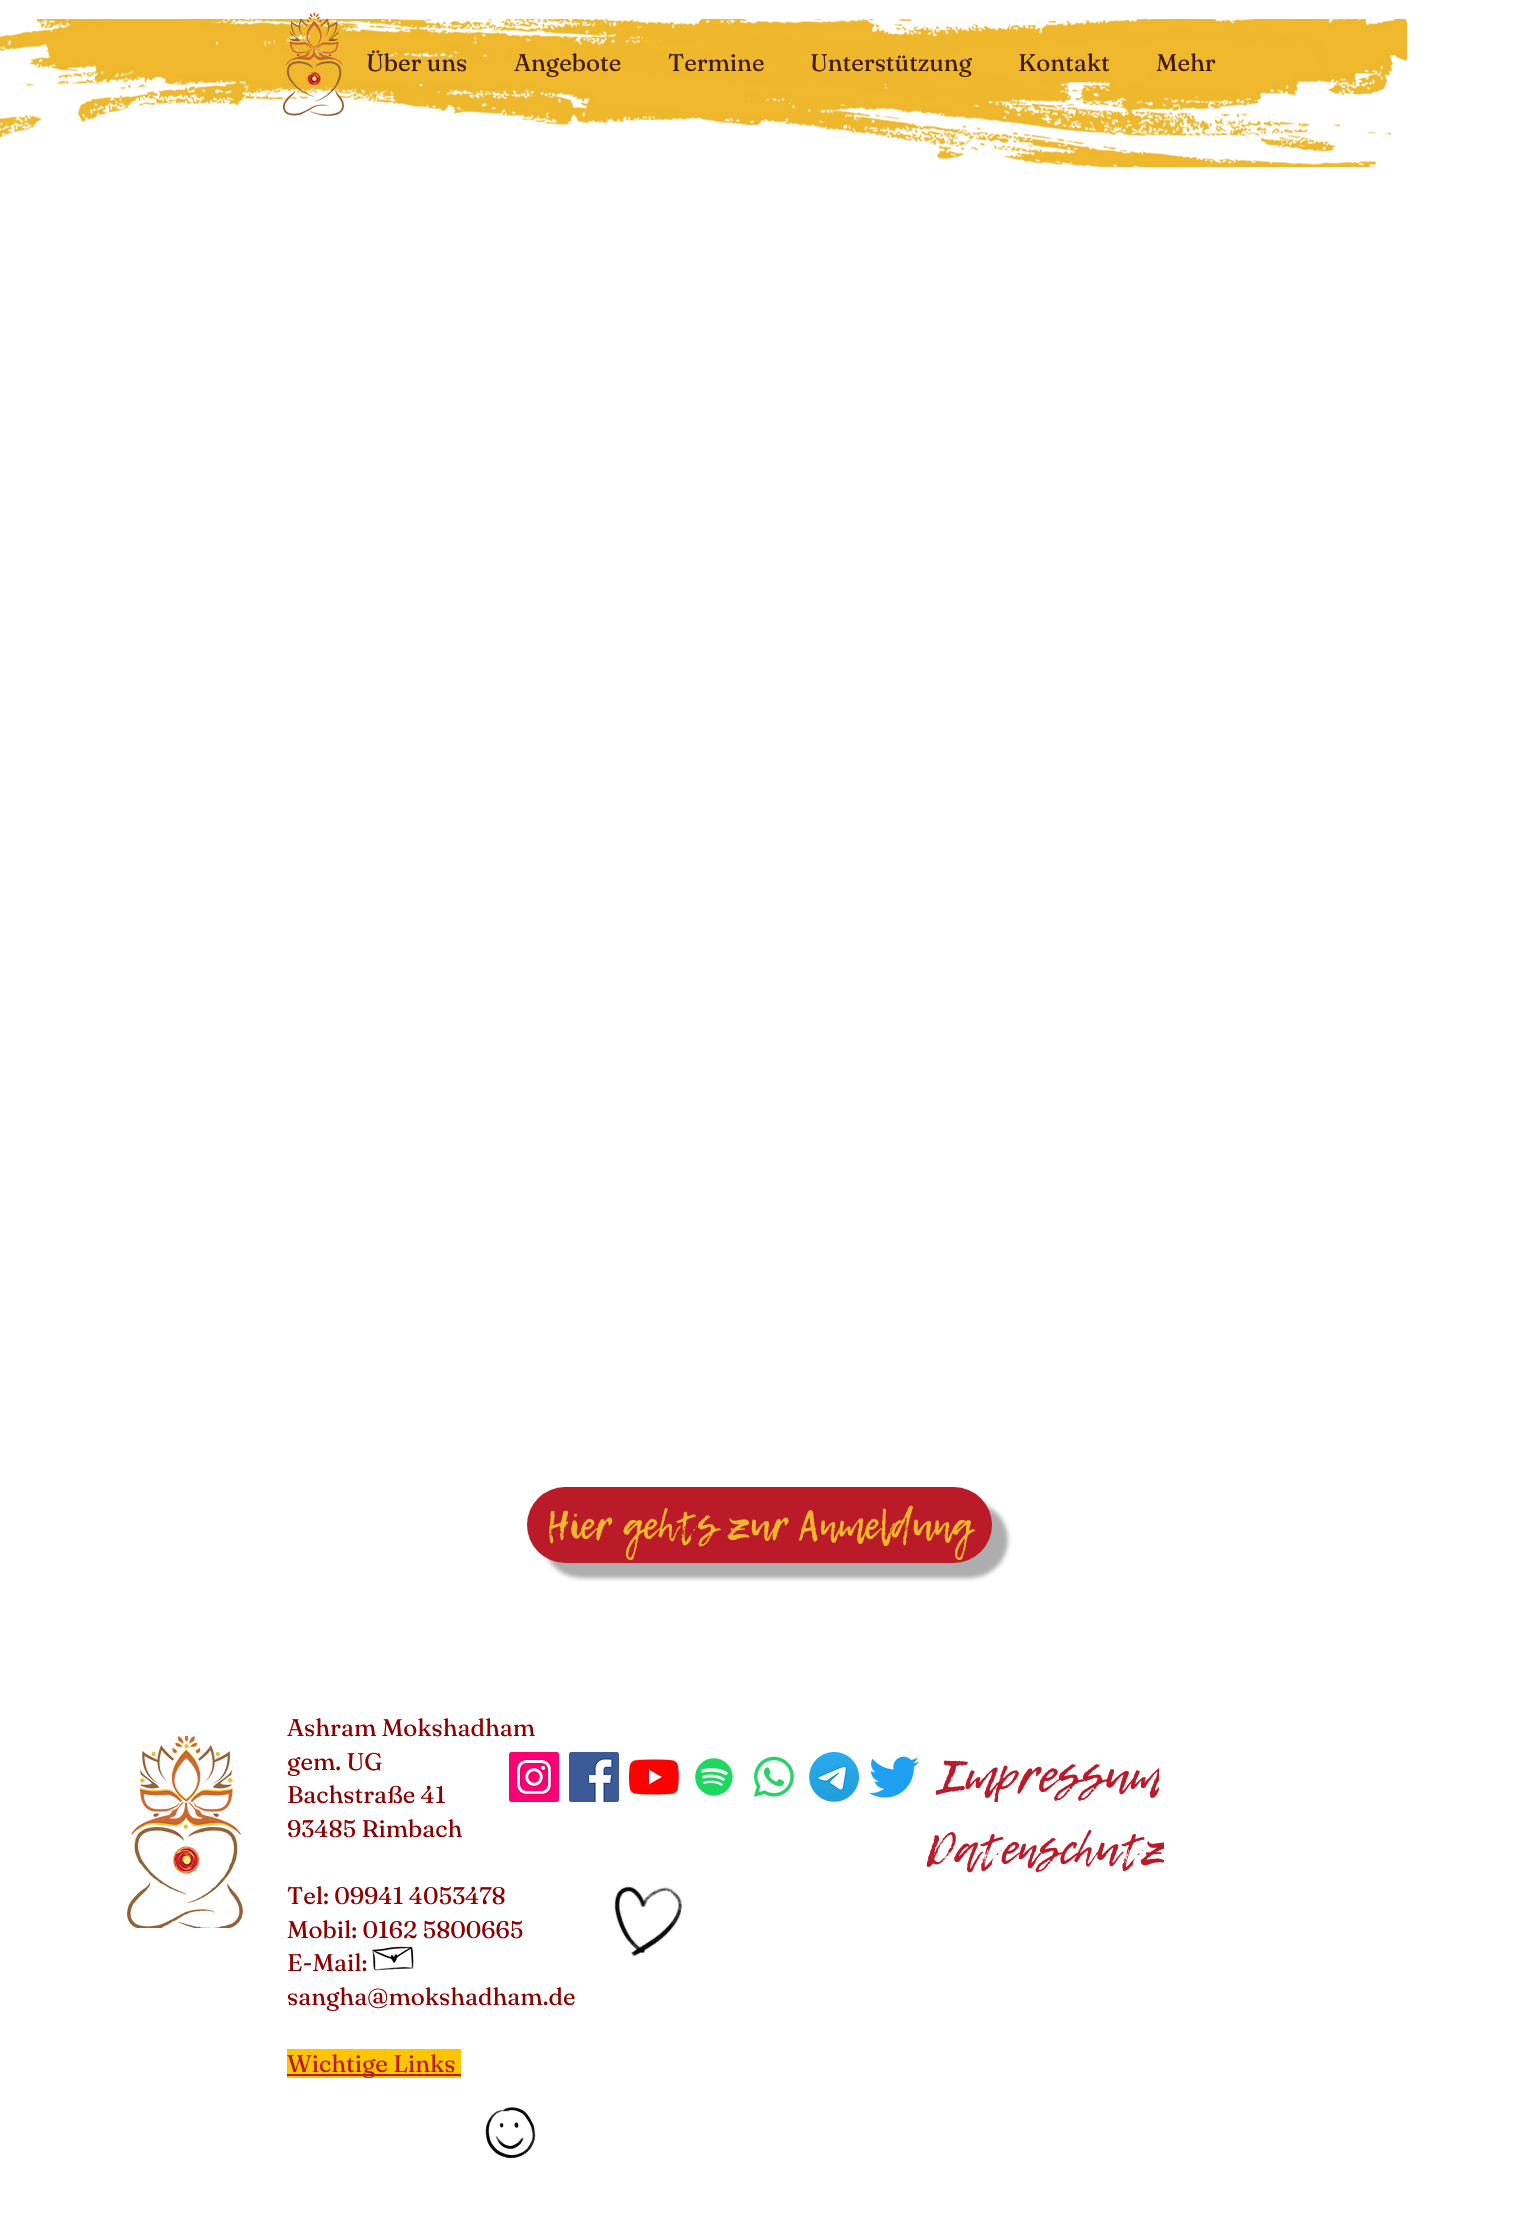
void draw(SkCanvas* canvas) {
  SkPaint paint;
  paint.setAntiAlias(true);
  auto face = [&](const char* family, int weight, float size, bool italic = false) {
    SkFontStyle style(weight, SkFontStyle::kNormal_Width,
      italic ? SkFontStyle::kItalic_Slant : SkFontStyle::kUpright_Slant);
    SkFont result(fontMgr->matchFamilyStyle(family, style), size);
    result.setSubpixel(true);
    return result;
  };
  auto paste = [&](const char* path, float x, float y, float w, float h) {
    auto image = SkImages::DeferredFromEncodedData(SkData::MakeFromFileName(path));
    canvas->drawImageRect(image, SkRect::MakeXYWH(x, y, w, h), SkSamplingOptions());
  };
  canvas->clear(0xffffffff);
  paste("img/2.png", 0, 19, 1407, 148);
  paste("img/1.png", 283, 12, 61, 104);
  paint.setColor(0x52000000);
  paint.setMaskFilter(SkMaskFilter::MakeBlur(kNormal_SkBlurStyle, 2));
  canvas->drawRoundRect(SkRect::MakeXYWH(543, 1502, 465, 76), 38, 38, paint);
  paint.setMaskFilter(nullptr);
  paint.setColor(0xffbb1a29);
  canvas->drawRoundRect(SkRect::MakeXYWH(527, 1487, 465, 76), 38, 38, paint);
  paste("img/3.png", 127, 1736, 116, 192);
  paint.setColor(0xfffec502);
  canvas->drawRect(SkRect::MakeXYWH(287, 2049, 174, 29), paint);
  paint.setColor(0xffbb1a29);
  canvas->drawRect(SkRect::MakeXYWH(287, 2074, 174, 2), paint);
  paste("img/4.png", 509, 1752, 50, 50);
  paste("img/5.png", 569, 1752, 50, 50);
  paste("img/6.png", 629, 1759, 50, 36);
  paste("img/7.png", 695, 1758, 38, 38);
  paste("img/8.png", 753, 1756, 41, 41);
  paste("img/9.png", 809, 1752, 50, 50);
  paste("img/10.png", 869, 1756, 50, 42);
  paste("img/11.png", 372, 1946, 42, 25);
  paste("img/12.png", 614, 1886, 69, 71);
  paste("img/13.png", 485, 2107, 51, 52);
  auto f0 = face("Fraunces", 400, 24);
  paint.setColor(0xff401b0c);
  {
    const struct { const char* s; float x, y; } items[] = {
      {"Über uns", 366, 71},
      {"Angebote", 514, 71},
      {"Termine", 668, 71},
      {"Unterstützung", 810, 71},
      {"Kontakt", 1018, 71},
      {"Mehr", 1156, 71},
    };
    for (auto [s, x, y] : items) {
      canvas->drawString(s, x, y, f0, paint);
    }
  }
  auto f1 = face("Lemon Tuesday", 400, 39);
  paint.setColor(0xffefb82d);
  canvas->drawString("Hier gehts zur Anmeldung", 547, 1539, f1, paint);
  paint.setColor(0xff8b0000);
  {
    const struct { const char* s; float x, y; } items[] = {
      {"Ashram Mokshadham", 287, 1736},
      {"gem. UG", 287, 1770},
      {"Bachstraße 41", 287, 1803},
      {"93485 Rimbach", 287, 1837},
      {"Tel: 09941 4053478", 287, 1904},
      {"Mobil: 0162 5800665", 287, 1938},
      {"E-Mail:", 287, 1971},
      {"sangha@mokshadham.de", 287, 2005},
    };
    for (auto [s, x, y] : items) {
      canvas->drawString(s, x, y, f0, paint);
    }
  }
  paint.setColor(0xffbb1a29);
  canvas->drawString("Wichtige Links", 287, 2072, f0, paint);
  canvas->save();
  canvas->clipRect(SkRect::MakeXYWH(936, 1748, 223, 54));
  auto f2 = face("Lemon Tuesday", 400, 46, true);
  canvas->drawString("Impressum", 936, 1792, f2, paint);
  canvas->restore();
  canvas->save();
  canvas->clipRect(SkRect::MakeXYWH(924, 1817, 240, 64));
  auto f3 = face("Lemon Tuesday", 400, 43, true);
  canvas->drawString("Datenschutz", 924, 1864, f3, paint);
  canvas->restore();
}
